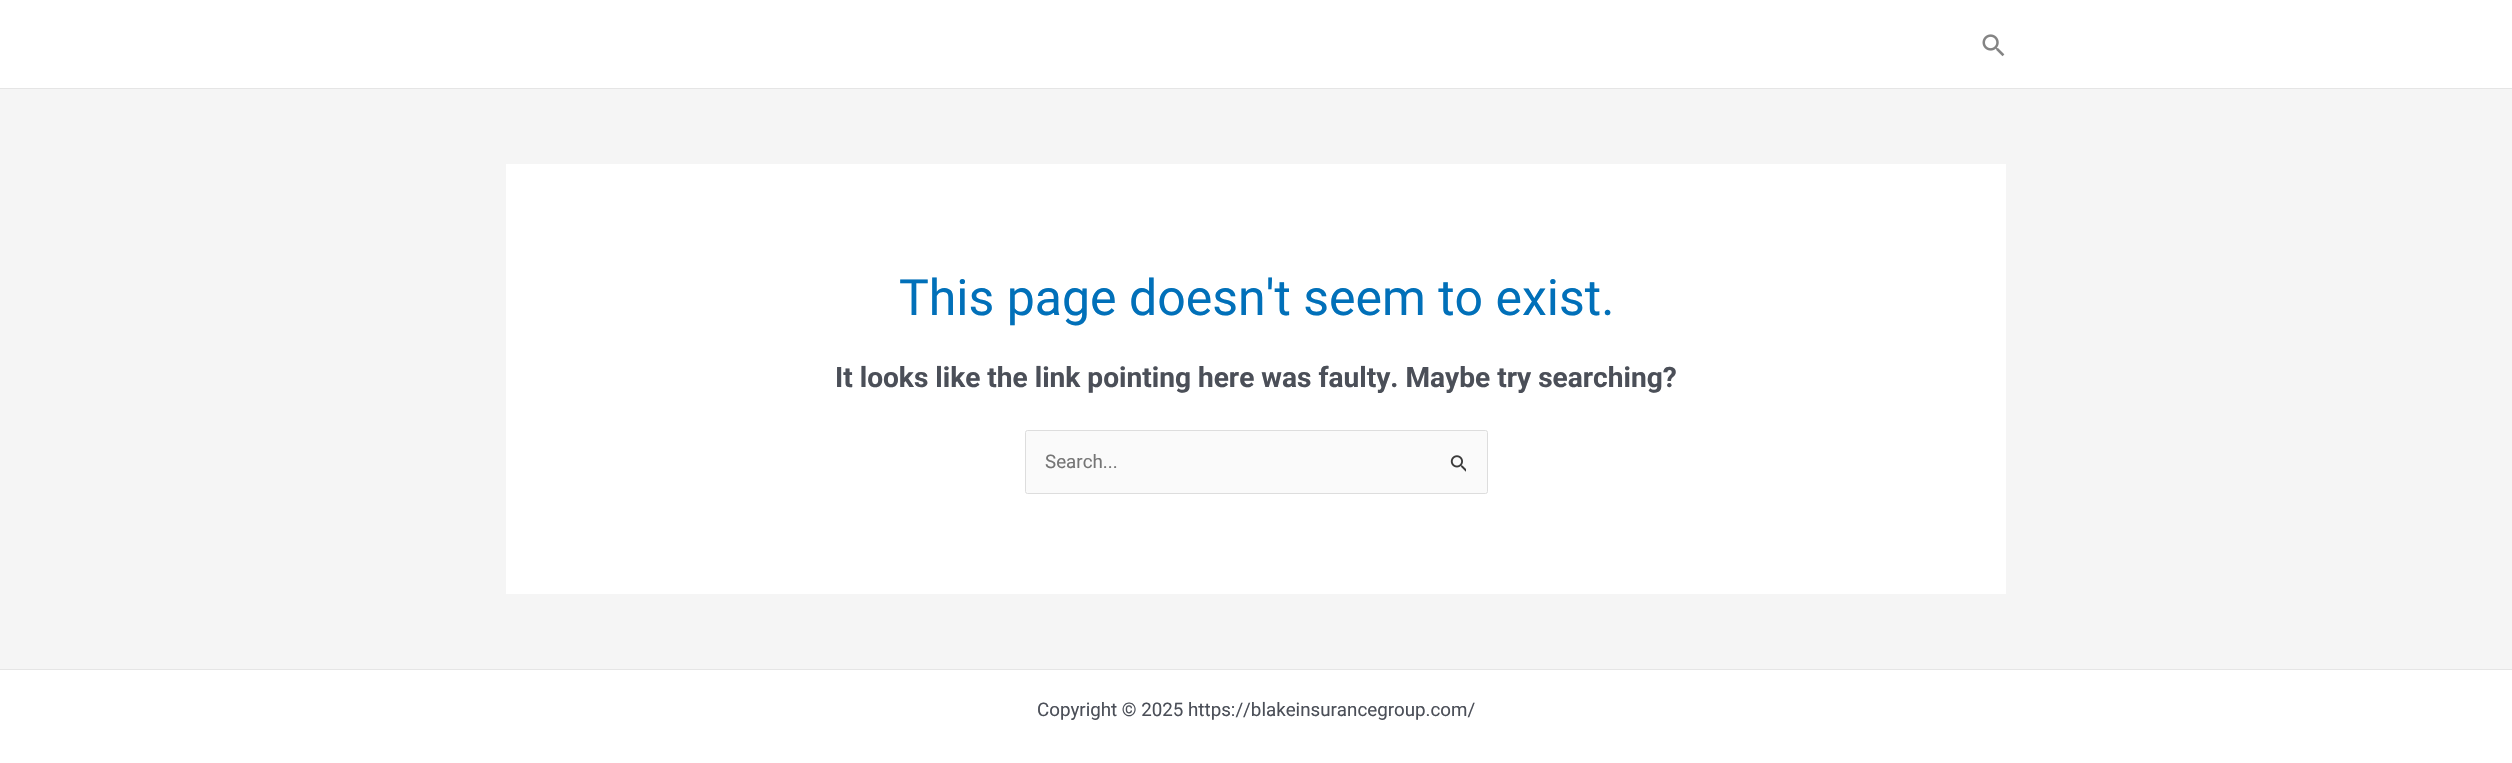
void draw(SkCanvas* canvas) {
  SkPaint paint;
  paint.setAntiAlias(true);
  auto face = [&](const char* family, int weight, float size, bool italic = false) {
    SkFontStyle style(weight, SkFontStyle::kNormal_Width,
      italic ? SkFontStyle::kItalic_Slant : SkFontStyle::kUpright_Slant);
    SkFont result(fontMgr->matchFamilyStyle(family, style), size);
    result.setSubpixel(true);
    return result;
  };
  auto paste = [&](const char* path, float x, float y, float w, float h) {
    auto image = SkImages::DeferredFromEncodedData(SkData::MakeFromFileName(path));
    canvas->drawImageRect(image, SkRect::MakeXYWH(x, y, w, h), SkSamplingOptions());
  };
  canvas->clear(0xfff5f5f5);
  paint.setColor(0xffffffff);
  canvas->drawRect(SkRect::MakeXYWH(0, 0, 2512, 88), paint);
  paint.setColor(0xffe5e5e5);
  canvas->drawRect(SkRect::MakeXYWH(0, 88, 2512, 1), paint);
  paste("img/1.png", 1982, 34, 23, 23);
  paint.setColor(0xffffffff);
  canvas->drawRect(SkRect::MakeXYWH(506, 164, 1500, 430), paint);
  paint.setColor(0xfffafafa);
  canvas->drawRoundRect(SkRect::MakeXYWH(1025.5f, 430.5f, 462, 63), 2, 2, paint);
  paint.setStroke(true);
  paint.setStrokeWidth(1);
  paint.setColor(0xffdddddd);
  canvas->drawRoundRect(SkRect::MakeXYWH(1025.5f, 430.5f, 462, 63), 2, 2, paint);
  paste("img/2.png", 1450, 455, 16, 17);
  paint.setStroke(false);
  paint.setColor(0xffffffff);
  canvas->drawRect(SkRect::MakeXYWH(0, 670, 2512, 93), paint);
  paint.setColor(0xffe5e5e5);
  canvas->drawRect(SkRect::MakeXYWH(0, 669, 2512, 1), paint);
  auto f0 = face("Roboto", 400, 50);
  paint.setColor(0xff0170b9);
  canvas->drawString("This page doesn't seem to exist.", 899, 315, f0, paint);
  auto f1 = face("Roboto", 700, 28.1f);
  paint.setColor(0xff4b4f58);
  canvas->drawString("It looks like the link pointing here was faulty. Maybe try searching?", 835, 387, f1, paint);
  auto f2 = face("Roboto", 400, 18.75f);
  paint.setColor(0xff757575);
  canvas->drawString("Search...", 1045, 468, f2, paint);
  paint.setColor(0xff4b4f58);
  canvas->drawString("Copyright © 2025 https://blakeinsurancegroup.com/", 1037, 716, f2, paint);
}
